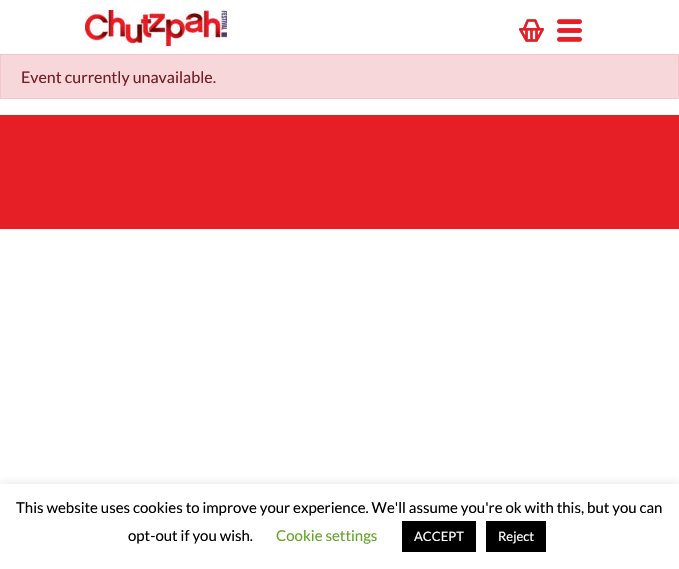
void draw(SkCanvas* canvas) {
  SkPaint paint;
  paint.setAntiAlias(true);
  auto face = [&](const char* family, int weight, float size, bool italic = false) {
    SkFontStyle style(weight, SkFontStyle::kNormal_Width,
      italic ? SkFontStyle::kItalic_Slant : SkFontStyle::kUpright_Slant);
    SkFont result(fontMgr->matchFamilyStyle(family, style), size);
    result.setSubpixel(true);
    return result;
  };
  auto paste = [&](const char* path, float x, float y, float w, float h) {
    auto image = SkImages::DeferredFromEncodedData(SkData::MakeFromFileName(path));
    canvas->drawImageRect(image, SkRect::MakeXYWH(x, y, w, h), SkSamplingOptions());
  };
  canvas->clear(0xffffffff);
  paste("img/1.png", 85, 10, 142, 36);
  paste("img/2.png", 519, 19, 25, 23);
  paste("img/3.png", 557, 19, 25, 23);
  paint.setColor(0xfff8d7da);
  canvas->drawRect(SkRect::MakeXYWH(0.5f, 54.5f, 678, 44), paint);
  paint.setStroke(true);
  paint.setStrokeWidth(1);
  paint.setColor(0xfff5c6cb);
  canvas->drawRect(SkRect::MakeXYWH(0.5f, 54.5f, 678, 44), paint);
  paint.setStroke(false);
  paint.setColor(0xffe61e25);
  canvas->drawRect(SkRect::MakeXYWH(0, 115, 679, 114), paint);
  canvas->save();
  canvas->clipRect(SkRect::MakeXYWH(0, 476, 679, 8));
  paint.setColor(0x4dacabab);
  paint.setMaskFilter(SkMaskFilter::MakeBlur(kNormal_SkBlurStyle, 5));
  canvas->drawRect(SkRect::MakeXYWH(0, 483, 679, 85), paint);
  paint.setMaskFilter(nullptr);
  canvas->restore();
  paint.setColor(0xff000000);
  canvas->drawRect(SkRect::MakeXYWH(402, 521, 74, 31), paint);
  canvas->drawRect(SkRect::MakeXYWH(486, 521, 60, 31), paint);
  auto f0 = face("Lato", 400, 16);
  paint.setColor(0xff721c24);
  canvas->drawString("Event currently unavailable.", 21, 83, f0, paint);
  auto f1 = face("Lato", 400, 15);
  paint.setColor(0xff000000);
  canvas->drawString("This website uses cookies to improve your experience. We'll assume you're ok with this, but you can", 16, 513, f1, paint);
  canvas->drawString("opt-out if you wish.", 128, 541, f1, paint);
  paint.setColor(0xff62a329);
  canvas->drawString("Cookie settings", 276, 541, f1, paint);
  auto f2 = face("Lato", 400, 13);
  paint.setColor(0xffffffff);
  canvas->drawString("ACCEPT", 414, 541, f2, paint);
  canvas->drawString("Reject", 498, 541, f2, paint);
}
